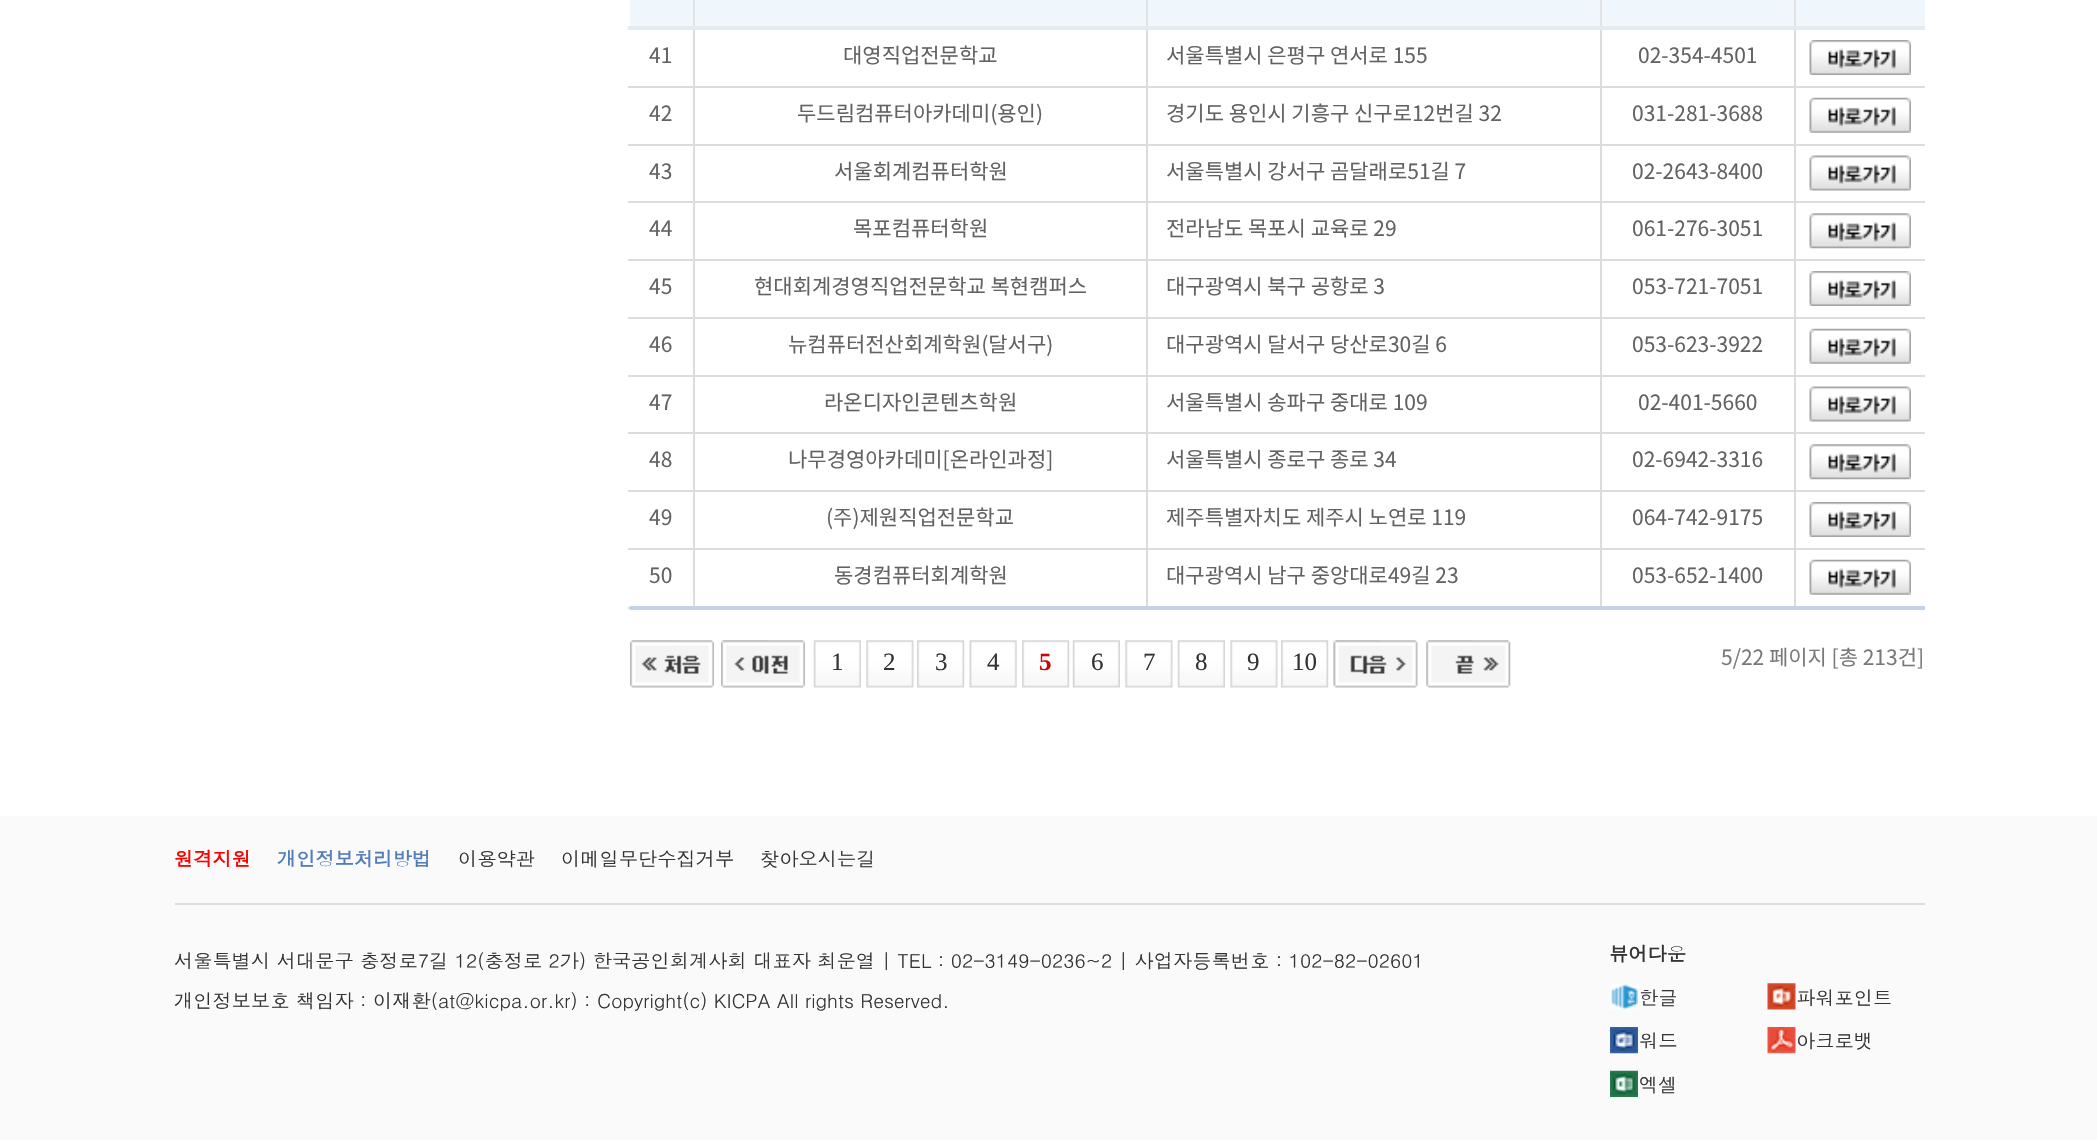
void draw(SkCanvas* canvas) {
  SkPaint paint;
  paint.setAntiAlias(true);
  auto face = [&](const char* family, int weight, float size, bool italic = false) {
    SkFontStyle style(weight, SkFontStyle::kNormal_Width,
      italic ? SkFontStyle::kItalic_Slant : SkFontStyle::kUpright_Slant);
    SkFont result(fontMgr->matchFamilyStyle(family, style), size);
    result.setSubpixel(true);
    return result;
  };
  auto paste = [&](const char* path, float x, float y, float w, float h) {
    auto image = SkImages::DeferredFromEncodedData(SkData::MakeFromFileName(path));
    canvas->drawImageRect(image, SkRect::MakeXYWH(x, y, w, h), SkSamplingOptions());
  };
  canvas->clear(0xffffffff);
  {
    const struct { float x, y, w, h; SkColor color; } items[] = {
      {693, 548, 2, 61, 0xffdcdcdc},
      {1146, 548, 2, 61, 0xffdcdcdc},
      {1600, 548, 2, 61, 0xffdcdcdc},
      {1794, 548, 2, 61, 0xffdcdcdc},
      {630, 606, 1295, 4, 0xffc3d2e4},
      {1796, 0, 129, 26, 0xfff0f7fc},
      {1794, 548, 131, 2, 0xffdcdcdc},
      {1794, 490, 2, 60, 0xffdcdcdc},
      {1794, 490, 131, 2, 0xffdcdcdc},
      {1794, 432, 2, 60, 0xffdcdcdc},
      {1794, 432, 131, 2, 0xffdcdcdc},
      {1794, 375, 2, 59, 0xffdcdcdc},
      {1794, 375, 131, 2, 0xffdcdcdc},
      {1794, 317, 2, 59, 0xffdcdcdc},
      {1794, 317, 131, 2, 0xffdcdcdc},
      {1794, 259, 2, 60, 0xffdcdcdc},
      {1794, 259, 131, 2, 0xffdcdcdc},
      {1794, 201, 2, 60, 0xffdcdcdc},
      {1794, 201, 131, 2, 0xffdcdcdc},
      {1794, 144, 2, 59, 0xffdcdcdc},
      {1794, 144, 131, 2, 0xffdcdcdc},
      {1794, 86, 2, 59, 0xffdcdcdc},
      {1794, 86, 131, 2, 0xffdcdcdc},
      {1794, 28, 2, 60, 0xffdcdcdc},
      {1600, 548, 196, 2, 0xffdcdcdc},
      {1600, 490, 2, 60, 0xffdcdcdc},
      {1600, 490, 196, 2, 0xffdcdcdc},
      {1600, 432, 2, 60, 0xffdcdcdc},
      {1600, 432, 196, 2, 0xffdcdcdc},
      {1600, 375, 2, 59, 0xffdcdcdc},
      {1600, 375, 196, 2, 0xffdcdcdc},
      {1600, 317, 2, 59, 0xffdcdcdc},
      {1600, 317, 196, 2, 0xffdcdcdc},
      {1600, 259, 2, 60, 0xffdcdcdc},
      {1600, 259, 196, 2, 0xffdcdcdc},
      {1600, 201, 2, 60, 0xffdcdcdc},
      {1600, 201, 196, 2, 0xffdcdcdc},
      {1600, 144, 2, 59, 0xffdcdcdc},
      {1600, 144, 196, 2, 0xffdcdcdc},
      {1600, 86, 2, 59, 0xffdcdcdc},
      {1600, 86, 196, 2, 0xffdcdcdc},
      {1600, 28, 2, 60, 0xffdcdcdc},
      {1146, 548, 455, 2, 0xffdcdcdc},
      {1146, 490, 2, 60, 0xffdcdcdc},
      {1146, 490, 455, 2, 0xffdcdcdc},
      {1146, 432, 2, 60, 0xffdcdcdc},
      {1146, 432, 455, 2, 0xffdcdcdc},
      {1146, 375, 2, 59, 0xffdcdcdc},
      {1146, 375, 455, 2, 0xffdcdcdc},
      {1146, 317, 2, 59, 0xffdcdcdc},
      {1146, 317, 455, 2, 0xffdcdcdc},
      {1146, 259, 2, 60, 0xffdcdcdc},
      {1146, 259, 455, 2, 0xffdcdcdc},
      {1146, 201, 2, 60, 0xffdcdcdc},
      {1146, 201, 455, 2, 0xffdcdcdc},
      {1146, 144, 2, 59, 0xffdcdcdc},
      {1146, 144, 455, 2, 0xffdcdcdc},
      {1146, 86, 2, 59, 0xffdcdcdc},
      {1146, 86, 455, 2, 0xffdcdcdc},
      {1146, 28, 2, 60, 0xffdcdcdc},
      {693, 548, 455, 2, 0xffdcdcdc},
      {693, 490, 2, 60, 0xffdcdcdc},
      {693, 490, 455, 2, 0xffdcdcdc},
      {693, 432, 2, 60, 0xffdcdcdc},
      {693, 432, 455, 2, 0xffdcdcdc},
      {693, 375, 2, 59, 0xffdcdcdc},
      {693, 375, 455, 2, 0xffdcdcdc},
      {693, 317, 2, 59, 0xffdcdcdc},
      {693, 317, 455, 2, 0xffdcdcdc},
      {693, 259, 2, 60, 0xffdcdcdc},
      {693, 259, 455, 2, 0xffdcdcdc},
      {693, 201, 2, 60, 0xffdcdcdc},
      {693, 201, 455, 2, 0xffdcdcdc},
      {693, 144, 2, 59, 0xffdcdcdc},
      {693, 144, 455, 2, 0xffdcdcdc},
      {693, 86, 2, 59, 0xffdcdcdc},
      {693, 86, 455, 2, 0xffdcdcdc},
      {693, 28, 2, 60, 0xffdcdcdc},
      {693, 0, 2, 30, 0xffe3e3e3},
      {1146, 0, 2, 30, 0xffe3e3e3},
      {1600, 0, 2, 30, 0xffe3e3e3},
      {1794, 0, 2, 30, 0xffe3e3e3},
      {628, 26, 1297, 4, 0xffe2ebf1},
      {630, 0, 63, 26, 0xfff0f7fc},
      {695, 0, 451, 26, 0xfff0f7fc},
      {1148, 0, 452, 26, 0xfff0f7fc},
      {1602, 0, 192, 26, 0xfff0f7fc},
      {628, 86, 67, 2, 0xffdcdcdc},
    };
    for (auto [x, y, w, h, color] : items) {
      paint.setColor(color);
      canvas->drawRect(SkRect::MakeXYWH(x, y, w, h), paint);
    }
  }
  paste("img/1.png", 1809, 40, 102, 35);
  canvas->drawRect(SkRect::MakeXYWH(628, 144, 67, 2), paint);
  paste("img/2.png", 1809, 97, 102, 36);
  canvas->drawRect(SkRect::MakeXYWH(628, 201, 67, 2), paint);
  paste("img/3.png", 1809, 155, 102, 36);
  canvas->drawRect(SkRect::MakeXYWH(628, 259, 67, 2), paint);
  paste("img/4.png", 1809, 213, 102, 36);
  canvas->drawRect(SkRect::MakeXYWH(628, 317, 67, 2), paint);
  paste("img/1.png", 1809, 271, 102, 35);
  canvas->drawRect(SkRect::MakeXYWH(628, 375, 67, 2), paint);
  paste("img/2.png", 1809, 328, 102, 36);
  canvas->drawRect(SkRect::MakeXYWH(628, 432, 67, 2), paint);
  paste("img/3.png", 1809, 386, 102, 36);
  canvas->drawRect(SkRect::MakeXYWH(628, 490, 67, 2), paint);
  paste("img/4.png", 1809, 444, 102, 36);
  canvas->drawRect(SkRect::MakeXYWH(628, 548, 67, 2), paint);
  paste("img/1.png", 1809, 502, 102, 35);
  canvas->drawRect(SkRect::MakeXYWH(628, 607, 2, 2), paint);
  paste("img/2.png", 1809, 559, 102, 36);
  paste("img/5.png", 630, 640, 49, 1);
  paste("img/6.png", 630, 640, 84, 48);
  paste("img/7.png", 721, 640, 48, 1);
  paste("img/8.png", 721, 640, 84, 48);
  paste("img/9.png", 813, 640, 48, 48);
  paste("img/10.png", 866, 640, 48, 48);
  paste("img/11.png", 917, 640, 48, 48);
  paste("img/12.png", 969, 640, 48, 48);
  paste("img/11.png", 1022, 640, 48, 48);
  paste("img/13.png", 1072, 640, 48, 48);
  paste("img/10.png", 1125, 640, 48, 48);
  paste("img/9.png", 1177, 640, 48, 48);
  paste("img/10.png", 1230, 640, 48, 48);
  paste("img/11.png", 1281, 640, 48, 48);
  paste("img/14.png", 1333, 640, 48, 41);
  paste("img/15.png", 1333, 640, 85, 48);
  paste("img/16.png", 1426, 640, 48, 41);
  paste("img/17.png", 1426, 640, 85, 48);
  paint.setColor(0xfffafafa);
  canvas->drawRect(SkRect::MakeXYWH(0, 816, 2097, 324), paint);
  paint.setColor(0xffdddddd);
  canvas->drawRect(SkRect::MakeXYWH(175, 903, 1750, 2), paint);
  paste("img/18.png", 1610, 984, 28, 26);
  paste("img/19.png", 1767, 983, 29, 27);
  paste("img/20.png", 1610, 1027, 28, 27);
  paste("img/21.png", 1767, 1027, 29, 27);
  paste("img/22.png", 1610, 1070, 28, 27);
  auto f0 = face("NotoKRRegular", 400, 21);
  paint.setColor(0xff626262);
  {
    const struct { const char* s; float x, y; } items[] = {
      {"41", 649, 63},
      {"대영직업전문학교", 843, 63},
      {"서울특별시 은평구 연서로 155", 1166, 63},
      {"02-354-4501", 1638, 63},
      {"42", 649, 121},
      {"두드림컴퓨터아카데미(용인)", 797, 121},
      {"경기도 용인시 기흥구 신구로12번길 32", 1166, 121},
      {"031-281-3688", 1632, 121},
      {"43", 649, 179},
      {"서울회계컴퓨터학원", 834, 179},
      {"서울특별시 강서구 곰달래로51길 7", 1166, 179},
      {"02-2643-8400", 1632, 179},
      {"44", 649, 236},
      {"목포컴퓨터학원", 853, 236},
      {"전라남도 목포시 교육로 29", 1166, 236},
      {"061-276-3051", 1632, 236},
      {"45", 649, 294},
      {"현대회계경영직업전문학교 복현캠퍼스", 754, 294},
      {"대구광역시 북구 공항로 3", 1166, 294},
      {"053-721-7051", 1632, 294},
      {"46", 649, 352},
      {"뉴컴퓨터전산회계학원(달서구)", 788, 352},
      {"대구광역시 달서구 당산로30길 6", 1166, 352},
      {"053-623-3922", 1632, 352},
      {"47", 649, 410},
      {"라온디자인콘텐츠학원", 824, 410},
      {"서울특별시 송파구 중대로 109", 1166, 410},
      {"02-401-5660", 1638, 410},
      {"48", 649, 467},
      {"나무경영아카데미[온라인과정]", 788, 467},
      {"서울특별시 종로구 종로 34", 1166, 467},
      {"02-6942-3316", 1632, 467},
      {"49", 649, 525},
      {"(주)제원직업전문학교", 826, 525},
      {"제주특별자치도 제주시 노연로 119", 1166, 525},
      {"064-742-9175", 1632, 525},
      {"50", 649, 583},
      {"동경컴퓨터회계학원", 834, 583},
      {"대구광역시 남구 중앙대로49길 23", 1166, 583},
      {"053-652-1400", 1632, 583},
    };
    for (auto [s, x, y] : items) {
      canvas->drawString(s, x, y, f0, paint);
    }
  }
  auto f1 = face("Liberation Serif", 400, 25);
  paint.setColor(0xff333333);
  {
    const struct { const char* s; float x, y; } items[] = {
      {"1", 831, 670},
      {"2", 883, 670},
      {"3", 935, 670},
      {"4", 987, 670},
    };
    for (auto [s, x, y] : items) {
      canvas->drawString(s, x, y, f1, paint);
    }
  }
  auto f2 = face("Liberation Serif", 700, 25);
  paint.setColor(0xffcc0505);
  canvas->drawString("5", 1039, 670, f2, paint);
  paint.setColor(0xff333333);
  {
    const struct { const char* s; float x, y; } items[] = {
      {"6", 1091, 670},
      {"7", 1143, 670},
      {"8", 1195, 670},
      {"9", 1247, 670},
      {"10", 1292, 670},
    };
    for (auto [s, x, y] : items) {
      canvas->drawString(s, x, y, f1, paint);
    }
  }
  paint.setColor(0xff797979);
  canvas->drawString("5/22 페이지 [총 213건]", 1721, 665, f0, paint);
  auto f3 = face("Dotum", 700, 19.25f);
  paint.setColor(0xffff0000);
  canvas->drawString("원격지원", 174, 866, f3, paint);
  paint.setColor(0xff527db9);
  canvas->drawString("개인정보처리방법", 277, 866, f3, paint);
  auto f4 = face("Dotum", 400, 19.25f);
  paint.setColor(0xff333333);
  {
    const struct { const char* s; float x, y; } items[] = {
      {"이용약관", 458, 866},
      {"이메일무단수집거부", 561, 866},
      {"찾아오시는길", 760, 866},
      {"서울특별시 서대문구 충정로7길 12(충정로 2가) 한국공인회계사회 대표자 최운열 | TEL : 02-3149-0236~2 | 사업자등록번호 : 102-82-02601", 174, 968},
      {"개인정보보호 책임자 : 이재환(at@kicpa.or.kr) : Copyright(c) KICPA All rights Reserved.", 174, 1008},
    };
    for (auto [s, x, y] : items) {
      canvas->drawString(s, x, y, f4, paint);
    }
  }
  canvas->drawString("뷰어다운", 1609, 961, f3, paint);
  {
    const struct { const char* s; float x, y; } items[] = {
      {"한글", 1639, 1005},
      {"파워포인트", 1796, 1005},
      {"워드", 1639, 1048},
      {"아크로뱃", 1796, 1048},
      {"엑셀", 1639, 1092},
    };
    for (auto [s, x, y] : items) {
      canvas->drawString(s, x, y, f4, paint);
    }
  }
}
